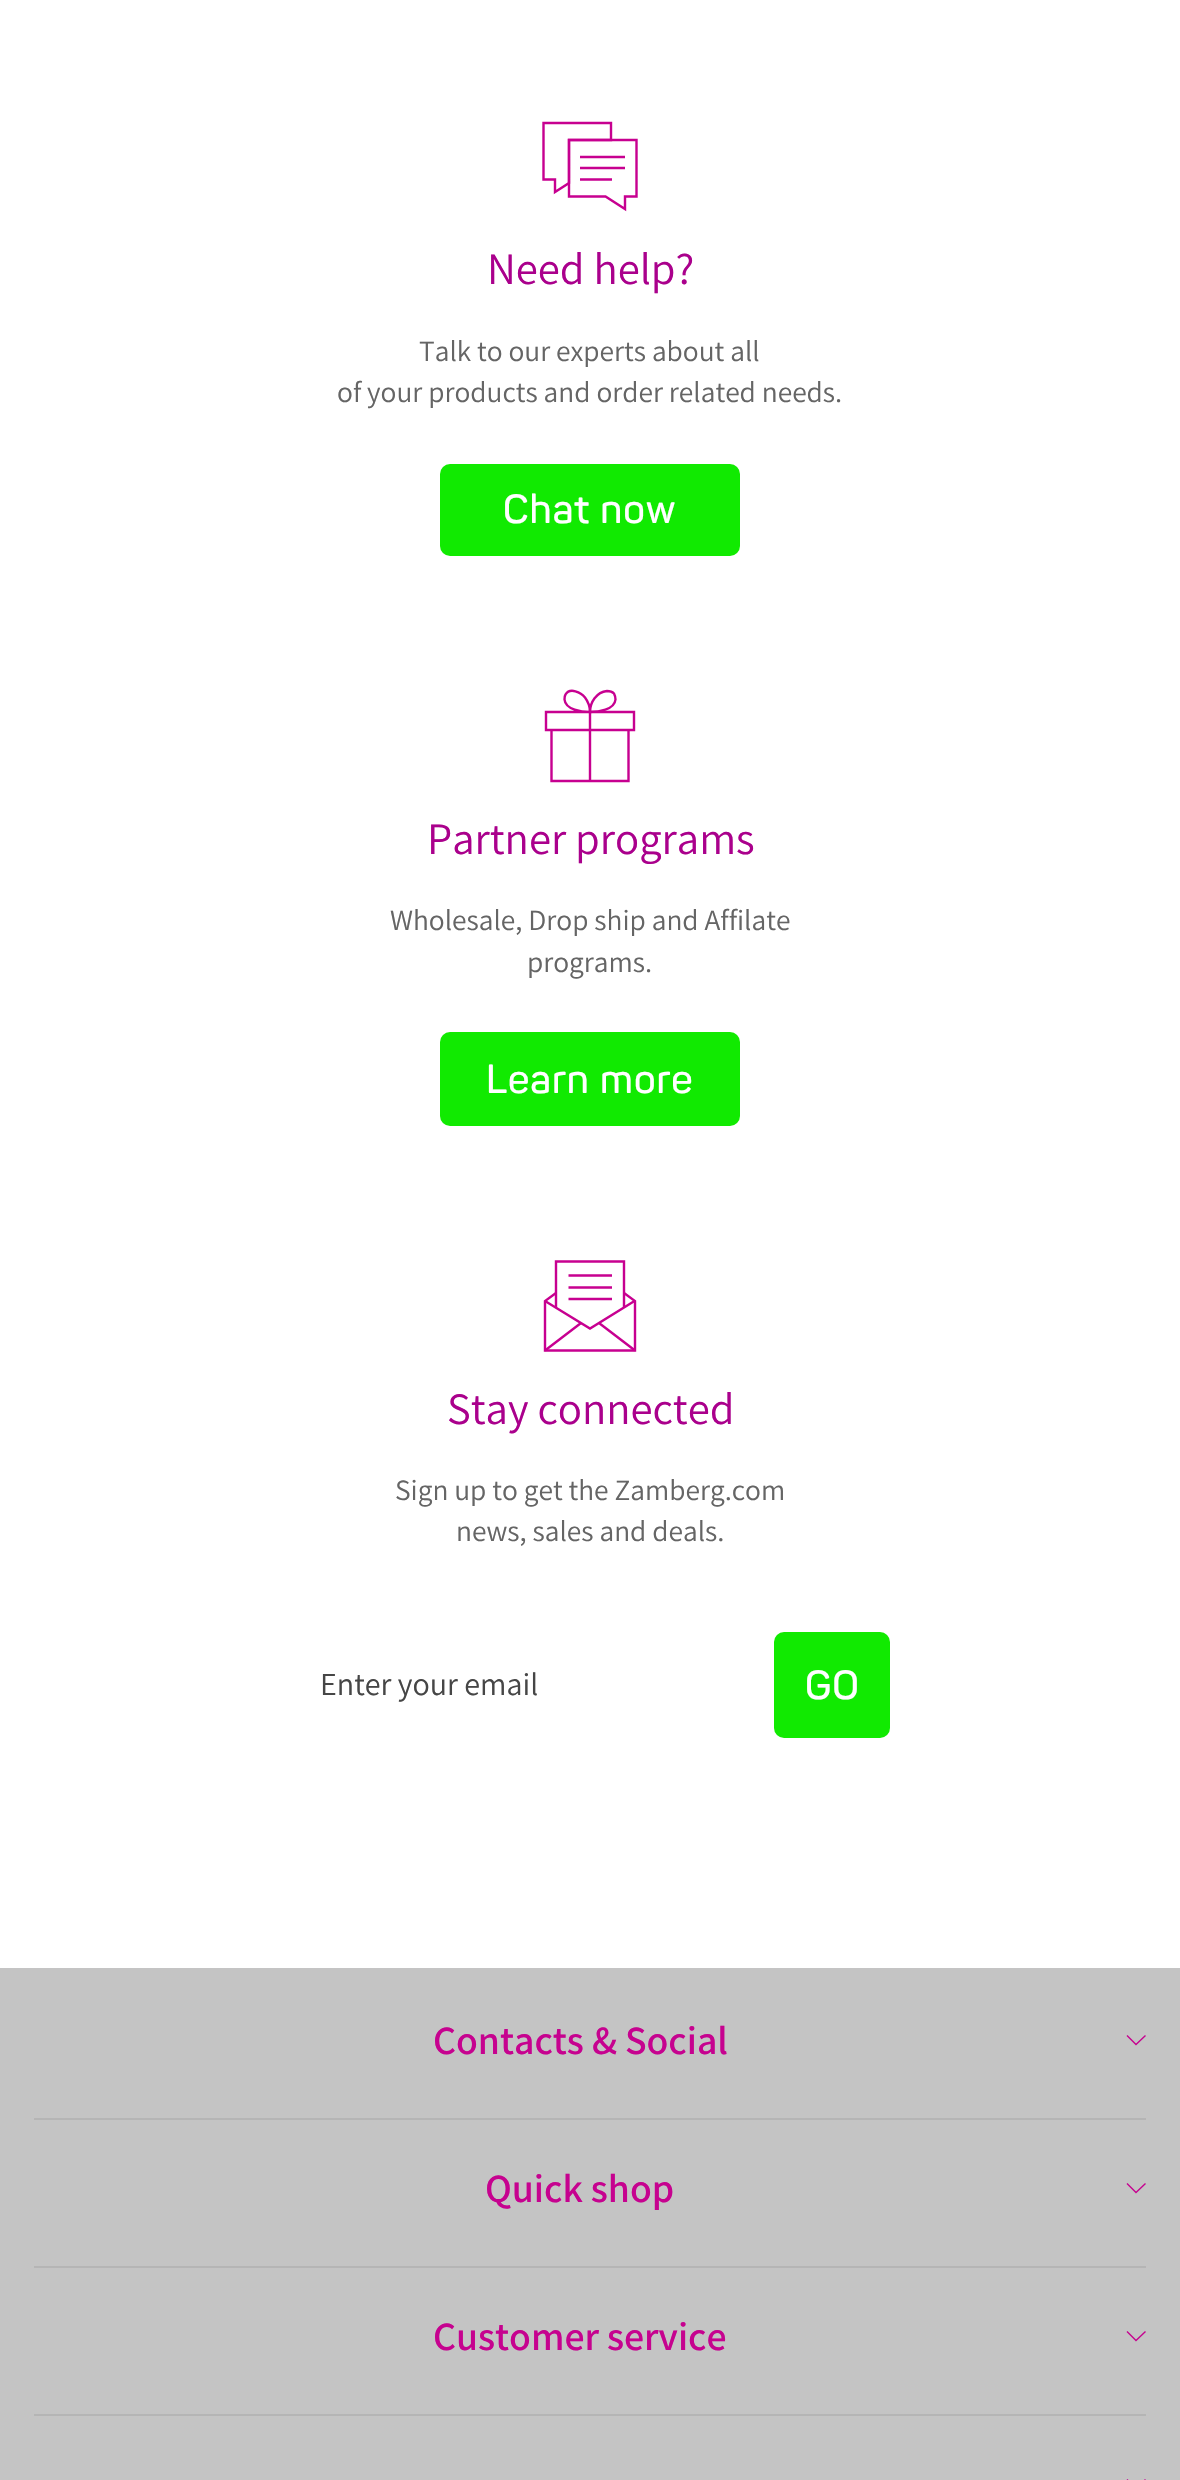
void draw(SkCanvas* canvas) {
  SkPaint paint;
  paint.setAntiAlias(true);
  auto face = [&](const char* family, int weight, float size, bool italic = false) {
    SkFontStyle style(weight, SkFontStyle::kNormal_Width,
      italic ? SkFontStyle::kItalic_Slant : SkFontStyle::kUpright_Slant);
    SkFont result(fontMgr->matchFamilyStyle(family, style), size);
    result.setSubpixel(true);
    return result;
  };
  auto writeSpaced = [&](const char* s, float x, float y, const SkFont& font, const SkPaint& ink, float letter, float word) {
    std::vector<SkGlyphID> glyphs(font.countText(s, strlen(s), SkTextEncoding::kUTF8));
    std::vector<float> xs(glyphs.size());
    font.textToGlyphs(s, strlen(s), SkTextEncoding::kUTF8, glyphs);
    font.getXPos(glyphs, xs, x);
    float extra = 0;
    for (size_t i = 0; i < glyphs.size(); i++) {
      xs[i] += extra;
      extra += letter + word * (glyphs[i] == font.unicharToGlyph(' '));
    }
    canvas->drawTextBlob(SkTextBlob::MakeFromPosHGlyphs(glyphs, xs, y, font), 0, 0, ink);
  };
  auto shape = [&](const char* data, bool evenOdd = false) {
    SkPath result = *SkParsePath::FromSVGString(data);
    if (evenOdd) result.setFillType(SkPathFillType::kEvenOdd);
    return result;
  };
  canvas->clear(0xffffffff);
  paint.setStroke(true);
  paint.setStrokeWidth(2.4f);
  paint.setColor(0xffc70090);
  canvas->drawPath(shape("M636.5 140V196.5H625V209L605.5 196.5H569V140ZM580 157H625M580 168H625M580 179.5H612"), paint);
  canvas->drawPath(shape("M611 123V140H569V183L555 192V179.5H543.5V123Z"), paint);
  paint.setStroke(false);
  paint.setColor(0xff11ea01);
  canvas->drawRoundRect(SkRect::MakeXYWH(440, 464, 300, 92), 10, 10, paint);
  paint.setStroke(true);
  paint.setColor(0xffc70090);
  canvas->drawPath(shape("M546 712H634V730H546ZM551.5 730H628.5V781H551.5ZM590 712V781M565.5 694.5C564.5 696 564.5 698 564.5 699.5C565.5 710 582 712 590 712C590 707 588 701.5 585 697.5C581 692.5 570 687 565.5 694.5Z"), paint);
  canvas->drawPath(shape("M614 693.5C615 695.5 615.5 697.5 615.5 699.5C614.5 710 598 712 590 712C590 702.5 596.5 692 607 691C609.5 691 612 691.5 614 693.5Z"), paint);
  paint.setStroke(false);
  paint.setColor(0xff11ea01);
  canvas->drawRoundRect(SkRect::MakeXYWH(440, 1032, 300, 94), 10, 10, paint);
  paint.setStroke(true);
  paint.setColor(0xffc70090);
  canvas->drawPath(shape("M624 1307.5V1261.5H556V1307.5M568.5 1275.5H612M568.5 1287.5H612M568.5 1299H612"), paint);
  canvas->drawPath(shape("M624 1293L635 1301V1350.5H545V1301L556 1293"), paint);
  canvas->drawPath(shape("M634.5 1301L590 1328.5L545 1301M545 1350.5L581 1323M635 1350.5L599 1323"), paint);
  paint.setStroke(false);
  paint.setColor(0xff11ea01);
  canvas->drawRoundRect(SkRect::MakeXYWH(774, 1632, 116, 106), 10, 10, paint);
  paint.setColor(0xffc4c4c4);
  canvas->drawRect(SkRect::MakeXYWH(0, 1968, 1180, 512), paint);
  paint.setStroke(true);
  paint.setStrokeWidth(1.4f);
  paint.setColor(0xffc6028f);
  canvas->drawPath(shape("M1127 2035.5L1136 2044.5L1145.5 2035.5"), paint);
  paint.setStroke(false);
  paint.setColor(0xffb5b5b5);
  canvas->drawRect(SkRect::MakeXYWH(34, 2118, 1112, 2), paint);
  paint.setStroke(true);
  paint.setColor(0xffc6028f);
  canvas->drawPath(shape("M1127 2183.5L1136 2192.5L1145.5 2183.5"), paint);
  paint.setStroke(false);
  paint.setColor(0xffb5b5b5);
  canvas->drawRect(SkRect::MakeXYWH(34, 2266, 1112, 2), paint);
  paint.setStroke(true);
  paint.setColor(0xffc6028f);
  canvas->drawPath(shape("M1127 2331.5L1136 2340.5L1145.5 2331.5"), paint);
  paint.setStroke(false);
  paint.setColor(0xffb5b5b5);
  canvas->drawRect(SkRect::MakeXYWH(34, 2414, 1112, 2), paint);
  paint.setStroke(true);
  paint.setColor(0xffc6028f);
  canvas->drawPath(shape("M1127 2479.5L1136 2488.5L1145.5 2479.5"), paint);
  auto f0 = face("Assistant", 400, 44.75f);
  paint.setStroke(false);
  paint.setColor(0xffaa008c);
  canvas->drawString("Need help?", 487, 284, f0, paint);
  auto f1 = face("Assistant", 400, 29.4f);
  paint.setColor(0xff656565);
  canvas->drawString("Talk to our experts about all", 419, 361, f1, paint);
  canvas->drawString("of your products and order related needs.", 337, 402, f1, paint);
  auto f2 = face("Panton", 600, 40);
  paint.setColor(0xffffffff);
  writeSpaced("Chat now", 503, 523, f2, paint, 1, 0);
  paint.setColor(0xffaa008c);
  canvas->drawString("Partner programs", 427, 854, f0, paint);
  paint.setColor(0xff656565);
  canvas->drawString("Wholesale, Drop ship and Affilate", 390, 930, f1, paint);
  canvas->drawString("programs.", 527, 972, f1, paint);
  paint.setColor(0xffffffff);
  writeSpaced("Learn more", 486, 1093, f2, paint, 1, 0);
  paint.setColor(0xffaa008c);
  canvas->drawString("Stay connected", 447, 1424, f0, paint);
  paint.setColor(0xff656565);
  canvas->drawString("Sign up to get the Zamberg.com", 395, 1500, f1, paint);
  canvas->drawString("news, sales and deals.", 456, 1541, f1, paint);
  auto f3 = face("Assistant", 400, 32);
  paint.setColor(0xff464646);
  canvas->drawString("Enter your email", 320, 1695, f3, paint);
  paint.setColor(0xffffffff);
  writeSpaced("GO", 805, 1699, f2, paint, 1, 0);
  auto f4 = face("Assistant", 600, 40);
  paint.setColor(0xffc6028f);
  {
    const struct { const char* s; float x, y; } items[] = {
      {"Contacts & Social", 433, 2054},
      {"Quick shop", 485, 2202},
      {"Customer service", 433, 2350},
    };
    for (auto [s, x, y] : items) {
      canvas->drawString(s, x, y, f4, paint);
    }
  }
}
